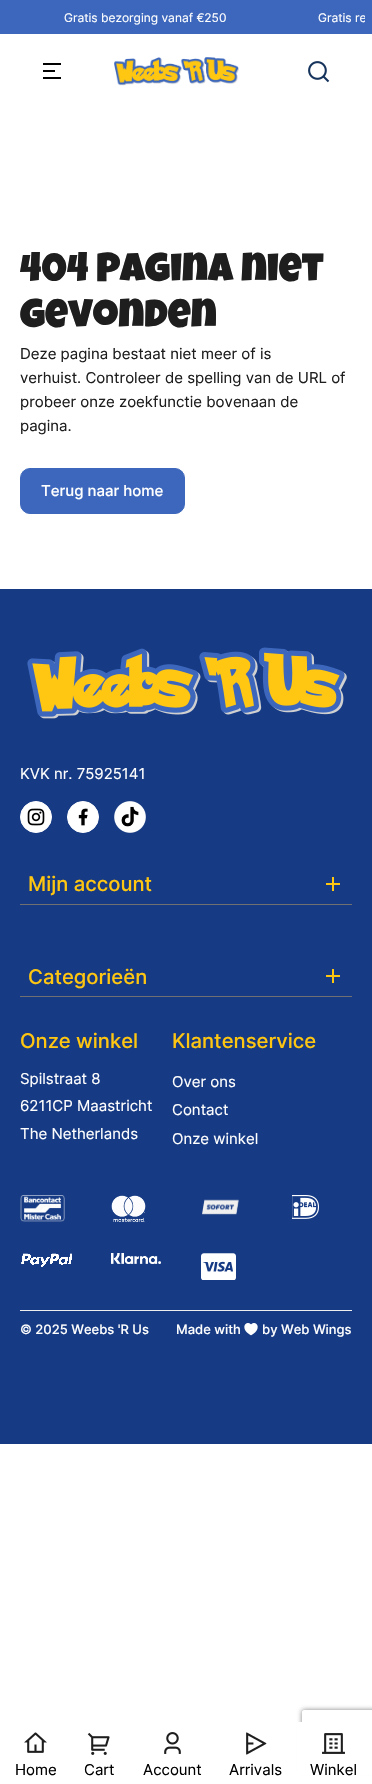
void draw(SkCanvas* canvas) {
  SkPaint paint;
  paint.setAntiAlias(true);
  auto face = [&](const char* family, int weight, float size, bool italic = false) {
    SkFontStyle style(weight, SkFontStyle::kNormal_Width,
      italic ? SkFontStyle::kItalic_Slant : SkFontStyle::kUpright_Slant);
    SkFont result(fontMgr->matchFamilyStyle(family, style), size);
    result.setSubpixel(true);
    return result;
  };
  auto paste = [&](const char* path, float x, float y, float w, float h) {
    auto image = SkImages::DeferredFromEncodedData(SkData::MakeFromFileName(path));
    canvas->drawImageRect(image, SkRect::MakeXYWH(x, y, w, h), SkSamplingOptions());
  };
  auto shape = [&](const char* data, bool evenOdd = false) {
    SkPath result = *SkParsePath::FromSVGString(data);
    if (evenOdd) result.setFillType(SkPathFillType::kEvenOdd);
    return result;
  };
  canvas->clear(0xffffffff);
  paint.setColor(0xff3c67bc);
  canvas->drawRect(SkRect::MakeXYWH(0, 0, 372, 34), paint);
  paste("img/1.png", 43, 63, 18, 16);
  paste("img/2.png", 114, 57, 125, 29);
  paste("img/3.png", 308, 61, 22, 22);
  canvas->drawRoundRect(SkRect::MakeXYWH(20.5f, 468.5f, 164, 45), 9.5f, 9.5f, paint);
  paint.setStroke(true);
  paint.setStrokeWidth(1);
  canvas->drawRoundRect(SkRect::MakeXYWH(20.5f, 468.5f, 164, 45), 9.5f, 9.5f, paint);
  paint.setStroke(false);
  paint.setColor(0xff163a83);
  canvas->drawRect(SkRect::MakeXYWH(0, 589, 372, 855), paint);
  paste("img/4.png", 27, 647, 320, 72);
  paint.setColor(0xffffffff);
  canvas->drawCircle(36, 817, 15.5f, paint);
  paint.setStroke(true);
  canvas->drawCircle(36, 817, 15.5f, paint);
  paste("img/5.png", 27, 808, 18, 18);
  paint.setStroke(false);
  canvas->drawCircle(83, 817, 15.5f, paint);
  paint.setStroke(true);
  canvas->drawCircle(83, 817, 15.5f, paint);
  paste("img/6.png", 78, 808, 10, 18);
  paste("img/7.png", 114, 801, 32, 32);
  paste("img/8.png", 326, 877, 14, 14);
  paint.setStroke(false);
  paint.setColor(0xff707070);
  canvas->drawRect(SkRect::MakeXYWH(20, 904, 332, 1), paint);
  paste("img/8.png", 326, 969, 14, 14);
  canvas->drawRect(SkRect::MakeXYWH(20, 996, 332, 1), paint);
  paste("img/9.png", 20, 1195, 45, 27);
  paste("img/10.png", 111, 1195, 35, 28);
  paste("img/11.png", 202, 1199, 37, 16);
  paste("img/12.png", 292, 1195, 27, 24);
  paste("img/13.png", 21, 1253, 51, 14);
  paste("img/14.png", 111, 1253, 50, 11);
  paste("img/15.png", 201, 1253, 35, 27);
  paint.setColor(0xffeeeeee);
  canvas->drawRect(SkRect::MakeXYWH(20, 1310, 332, 1), paint);
  paste("img/16.png", 244, 1323, 14, 13);
  canvas->save();
  canvas->clipPath(shape("M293 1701H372V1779H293ZM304 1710H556C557 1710 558 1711 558 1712V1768C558 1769 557 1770 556 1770H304C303 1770 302 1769 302 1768V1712C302 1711 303 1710 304 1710Z", true), true);
  paint.setColor(0xff808080);
  paint.setMaskFilter(SkMaskFilter::MakeBlur(kNormal_SkBlurStyle, 2.5f));
  canvas->drawRoundRect(SkRect::MakeXYWH(302, 1710, 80, 60), 2, 2, paint);
  paint.setMaskFilter(nullptr);
  canvas->restore();
  paint.setColor(0xffffffff);
  canvas->drawRect(SkRect::MakeXYWH(297, 1722, 75, 53), paint);
  paste("img/17.png", 24, 1732, 23, 21);
  paste("img/18.png", 87, 1732, 23, 23);
  paste("img/19.png", 164, 1732, 17, 22);
  paste("img/20.png", 246, 1732, 21, 23);
  paste("img/21.png", 322, 1733, 23, 21);
  auto f0 = face("Inter", 400, 12);
  canvas->drawString("Gratis bezorging vanaf €250", 64, 22, f0, paint);
  canvas->save();
  canvas->clipRect(SkRect::MakeXYWH(8, 8, 357, 19));
  canvas->drawString("Gratis re", 318, 22, f0, paint);
  canvas->restore();
  auto f1 = face("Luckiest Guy", 400, 40);
  paint.setColor(0xff1e1e1e);
  canvas->drawString("404 Pagina niet", 20, 281, f1, paint);
  canvas->drawString("gevonden", 20, 327, f1, paint);
  auto f2 = face("Inter", 400, 15);
  {
    const struct { const char* s; float x, y; } items[] = {
      {"Deze pagina bestaat niet meer of is", 20, 359},
      {"verhuist. Controleer de spelling van de URL of", 20, 383},
      {"probeer onze zoekfunctie bovenaan de", 20, 407},
      {"pagina.", 20, 431},
    };
    for (auto [s, x, y] : items) {
      canvas->drawString(s, x, y, f2, paint);
    }
  }
  auto f3 = face("Inter", 500, 15);
  paint.setColor(0xffffffff);
  canvas->drawString("Terug naar home", 41, 496, f3, paint);
  canvas->drawString("KVK nr. 75925141", 20, 779, f2, paint);
  auto f4 = face("Inter", 500, 20.25f);
  paint.setColor(0xffffc611);
  {
    const struct { const char* s; float x, y; } items[] = {
      {"Mijn account", 28, 891},
      {"Categorieën", 28, 984},
      {"Onze winkel", 20, 1048},
    };
    for (auto [s, x, y] : items) {
      canvas->drawString(s, x, y, f4, paint);
    }
  }
  paint.setColor(0xffffffff);
  {
    const struct { const char* s; float x, y; } items[] = {
      {"Spilstraat 8", 20, 1084},
      {"6211CP Maastricht", 20, 1111},
      {"The Netherlands", 20, 1139},
    };
    for (auto [s, x, y] : items) {
      canvas->drawString(s, x, y, f2, paint);
    }
  }
  paint.setColor(0xffffc611);
  canvas->drawString("Klantenservice", 172, 1048, f4, paint);
  paint.setColor(0xffffffff);
  {
    const struct { const char* s; float x, y; } items[] = {
      {"Over ons", 172, 1087},
      {"Contact", 172, 1115},
      {"Onze winkel", 172, 1144},
    };
    for (auto [s, x, y] : items) {
      canvas->drawString(s, x, y, f2, paint);
    }
  }
  auto f5 = face("Inter", 500, 13);
  {
    const struct { const char* s; float x, y; } items[] = {
      {"© 2025 Weebs 'R Us", 20, 1334},
      {"Made with", 176, 1334},
      {"by Web Wings", 262, 1334},
    };
    for (auto [s, x, y] : items) {
      canvas->drawString(s, x, y, f5, paint);
    }
  }
  paint.setColor(0xff000000);
  {
    const struct { const char* s; float x, y; } items[] = {
      {"Home", 15, 1775},
      {"Cart", 84, 1775},
      {"Account", 143, 1775},
      {"Arrivals", 229, 1775},
      {"Winkel", 310, 1775},
    };
    for (auto [s, x, y] : items) {
      canvas->drawString(s, x, y, f2, paint);
    }
  }
}
